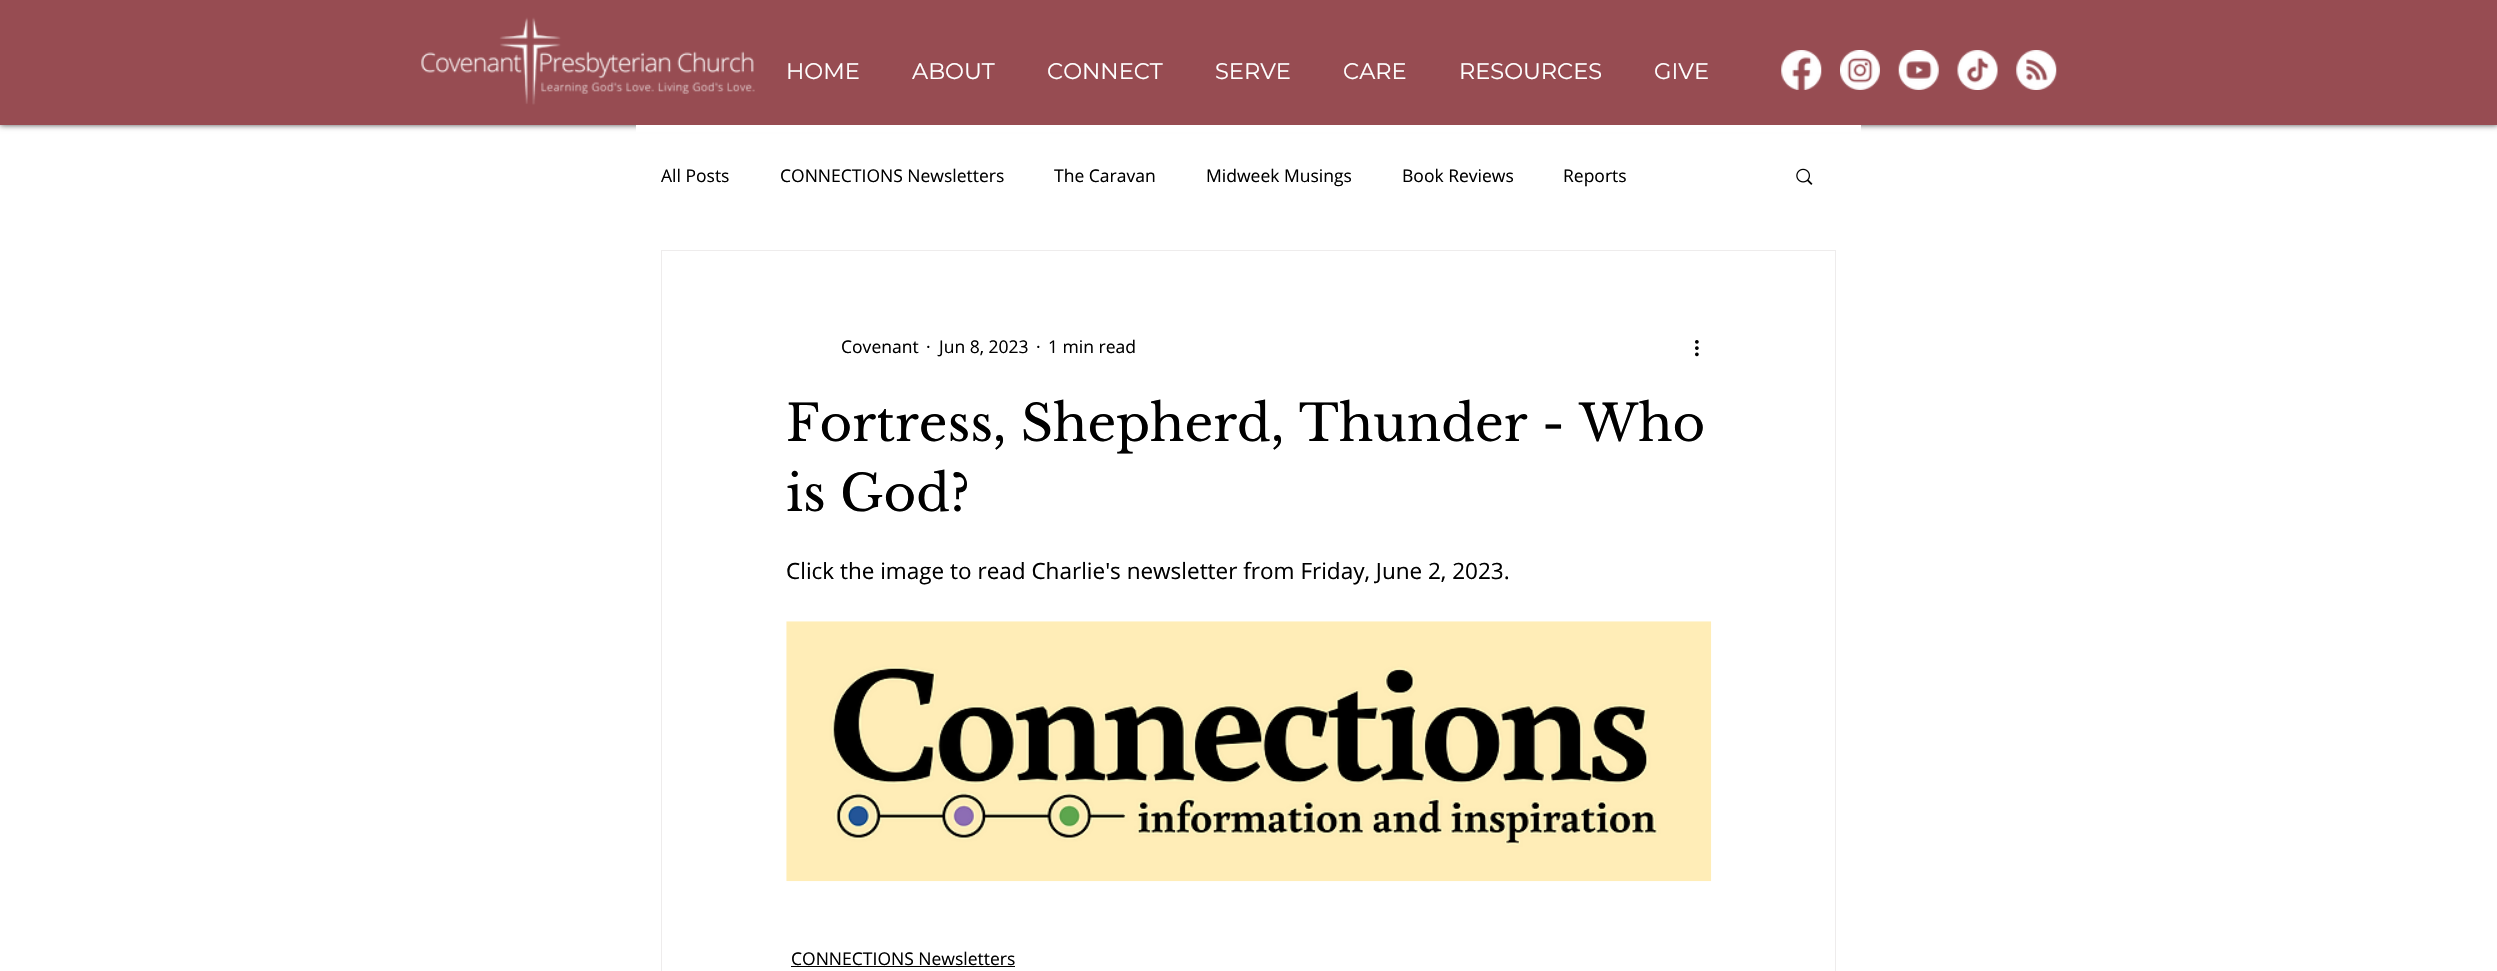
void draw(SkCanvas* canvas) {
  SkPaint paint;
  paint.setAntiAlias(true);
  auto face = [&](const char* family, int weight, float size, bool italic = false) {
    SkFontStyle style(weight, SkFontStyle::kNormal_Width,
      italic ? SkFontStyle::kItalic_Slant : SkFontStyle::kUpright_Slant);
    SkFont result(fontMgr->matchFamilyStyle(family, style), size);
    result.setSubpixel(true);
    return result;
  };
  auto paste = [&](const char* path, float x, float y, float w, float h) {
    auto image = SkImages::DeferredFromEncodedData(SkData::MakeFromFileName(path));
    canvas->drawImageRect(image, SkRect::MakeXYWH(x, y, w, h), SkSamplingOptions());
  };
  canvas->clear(0xffffffff);
  paint.setColor(0xb3000000);
  paint.setMaskFilter(SkMaskFilter::MakeBlur(kNormal_SkBlurStyle, 3));
  canvas->drawRect(SkRect::MakeXYWH(0, 0, 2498, 125), paint);
  paint.setMaskFilter(nullptr);
  paint.setColor(0xff974c52);
  canvas->drawRect(SkRect::MakeXYWH(0, 0, 2497, 125), paint);
  paste("img/1.png", 421, 17, 334, 88);
  paste("img/2.png", 1781, 50, 41, 40);
  paste("img/3.png", 1840, 50, 40, 40);
  paste("img/4.png", 1898, 50, 41, 40);
  paste("img/5.png", 1957, 50, 41, 40);
  paste("img/6.png", 2016, 50, 41, 40);
  paint.setColor(0xffffffff);
  canvas->drawRect(SkRect::MakeXYWH(636, 125, 1225, 7), paint);
  paste("img/7.png", 1796, 168, 17, 17);
  paint.setStroke(true);
  paint.setStrokeWidth(1);
  paint.setColor(0xffeeecec);
  canvas->drawRect(SkRect::MakeXYWH(661.5f, 250.5f, 1174, 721), paint);
  paste("img/8.png", 1695, 340, 4, 17);
  paste("img/9.png", 786, 621, 926, 261);
  paint.setStroke(false);
  paint.setColor(0xff000000);
  canvas->drawRect(SkRect::MakeXYWH(791, 966, 224, 1), paint);
  auto f0 = face("Montserrat", 400, 22.5f);
  paint.setColor(0xffffffff);
  {
    const struct { const char* s; float x, y; } items[] = {
      {"HOME", 786, 79},
      {"ABOUT", 912, 79},
      {"CONNECT", 1047, 79},
      {"SERVE", 1215, 79},
      {"CARE", 1343, 79},
      {"RESOURCES", 1459, 79},
      {"GIVE", 1654, 79},
    };
    for (auto [s, x, y] : items) {
      canvas->drawString(s, x, y, f0, paint);
    }
  }
  auto f1 = face("Open Sans", 400, 17.5f);
  paint.setColor(0xff000000);
  {
    const struct { const char* s; float x, y; } items[] = {
      {"All Posts", 661, 182},
      {"CONNECTIONS Newsletters", 780, 182},
      {"The Caravan", 1054, 182},
      {"Midweek Musings", 1206, 182},
      {"Book Reviews", 1402, 182},
      {"Reports", 1563, 182},
      {"Covenant", 841, 353},
      {"·", 926, 353},
      {"Jun 8, 2023", 939, 353},
      {"·", 1036, 353},
      {"1 min read", 1048, 353},
    };
    for (auto [s, x, y] : items) {
      canvas->drawString(s, x, y, f1, paint);
    }
  }
  auto f2 = face("Libre Baskerville", 400, 50);
  canvas->drawString("Fortress, Shepherd, Thunder - Who", 786, 441, f2, paint);
  canvas->drawString("is God?", 786, 511, f2, paint);
  auto f3 = face("Open Sans", 400, 22.5f);
  canvas->drawString("Click the image to read Charlie's newsletter from Friday, June 2, 2023.", 786, 579, f3, paint);
  canvas->drawString("CONNECTIONS Newsletters", 791, 965, f1, paint);
}
